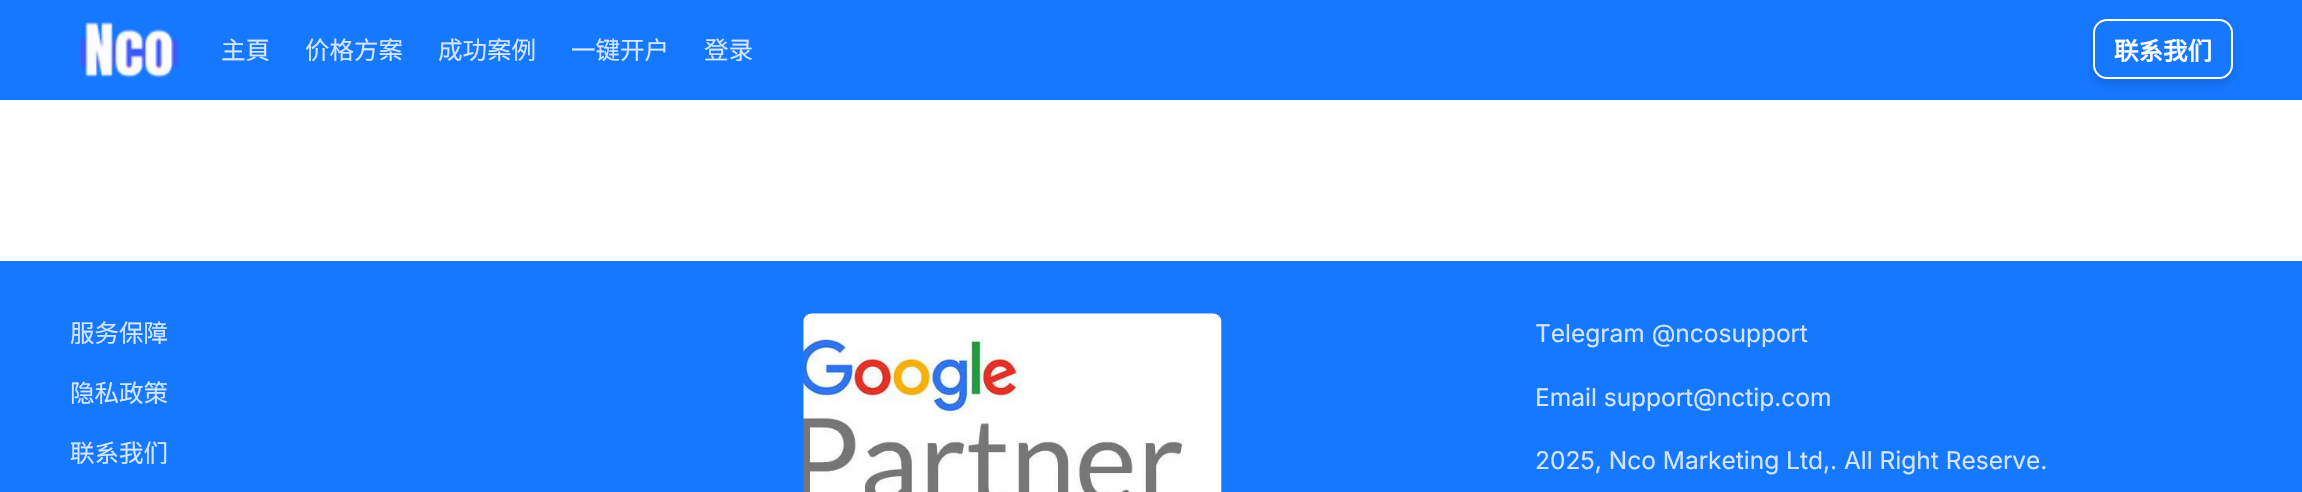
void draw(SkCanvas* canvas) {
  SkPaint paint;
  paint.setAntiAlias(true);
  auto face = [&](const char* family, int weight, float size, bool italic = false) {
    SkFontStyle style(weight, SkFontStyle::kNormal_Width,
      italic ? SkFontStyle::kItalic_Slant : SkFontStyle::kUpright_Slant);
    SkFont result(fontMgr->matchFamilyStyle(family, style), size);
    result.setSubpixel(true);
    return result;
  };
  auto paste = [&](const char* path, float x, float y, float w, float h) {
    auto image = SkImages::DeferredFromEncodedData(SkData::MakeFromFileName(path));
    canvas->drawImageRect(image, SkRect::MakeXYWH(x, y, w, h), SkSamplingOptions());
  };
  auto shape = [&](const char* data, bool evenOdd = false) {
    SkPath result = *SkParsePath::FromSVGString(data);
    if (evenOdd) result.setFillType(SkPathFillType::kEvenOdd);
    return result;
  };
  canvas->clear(0xffffffff);
  paint.setColor(0xff1677ff);
  canvas->drawRect(SkRect::MakeXYWH(0, 0, 2302, 100), paint);
  paste("img/1.png", 79, 22, 100, 56);
  canvas->save();
  canvas->clipPath(shape("M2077 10H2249V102H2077ZM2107 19H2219C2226.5 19 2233 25.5 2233 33V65C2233 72.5 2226.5 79 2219 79H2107C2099.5 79 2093 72.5 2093 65V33C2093 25.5 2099.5 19 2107 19Z", true), true);
  paint.setColor(0x1a000000);
  paint.setMaskFilter(SkMaskFilter::MakeBlur(kNormal_SkBlurStyle, 5));
  canvas->drawRoundRect(SkRect::MakeXYWH(2093, 26, 140, 60), 14, 14, paint);
  paint.setMaskFilter(nullptr);
  canvas->restore();
  paint.setStroke(true);
  paint.setStrokeWidth(2);
  paint.setColor(0xffffffff);
  canvas->drawRoundRect(SkRect::MakeXYWH(2094, 20, 138, 58), 13, 13, paint);
  paint.setStroke(false);
  paint.setColor(0xff1677ff);
  canvas->drawRect(SkRect::MakeXYWH(0, 261, 2302, 231), paint);
  paste("img/2.png", 803, 313, 419, 179);
  auto f0 = face("Noto Sans CJK TC", 400, 24.5f);
  paint.setColor(0xffd3e5ff);
  {
    const struct { const char* s; float x, y; } items[] = {
      {"主頁", 221, 59},
      {"价格方案", 305, 59},
      {"成功案例", 438, 59},
      {"一键开户", 571, 59},
      {"登录", 704, 59},
    };
    for (auto [s, x, y] : items) {
      canvas->drawString(s, x, y, f0, paint);
    }
  }
  auto f1 = face("Noto Sans CJK TC", 700, 24.5f);
  paint.setColor(0xffffffff);
  canvas->drawString("联系我们", 2114, 60, f1, paint);
  paint.setColor(0xffd3e5ff);
  {
    const struct { const char* s; float x, y; } items[] = {
      {"服务保障", 70, 342},
      {"隐私政策", 70, 402},
      {"联系我们", 70, 462},
    };
    for (auto [s, x, y] : items) {
      canvas->drawString(s, x, y, f0, paint);
    }
  }
  auto f2 = face("Inter", 400, 24.5f);
  {
    const struct { const char* s; float x, y; } items[] = {
      {"Telegram @ncosupport", 1535, 342},
      {"Email support@nctip.com", 1535, 406},
      {"2025, Nco Marketing Ltd,. All Right Reserve.", 1535, 469},
    };
    for (auto [s, x, y] : items) {
      canvas->drawString(s, x, y, f2, paint);
    }
  }
}
